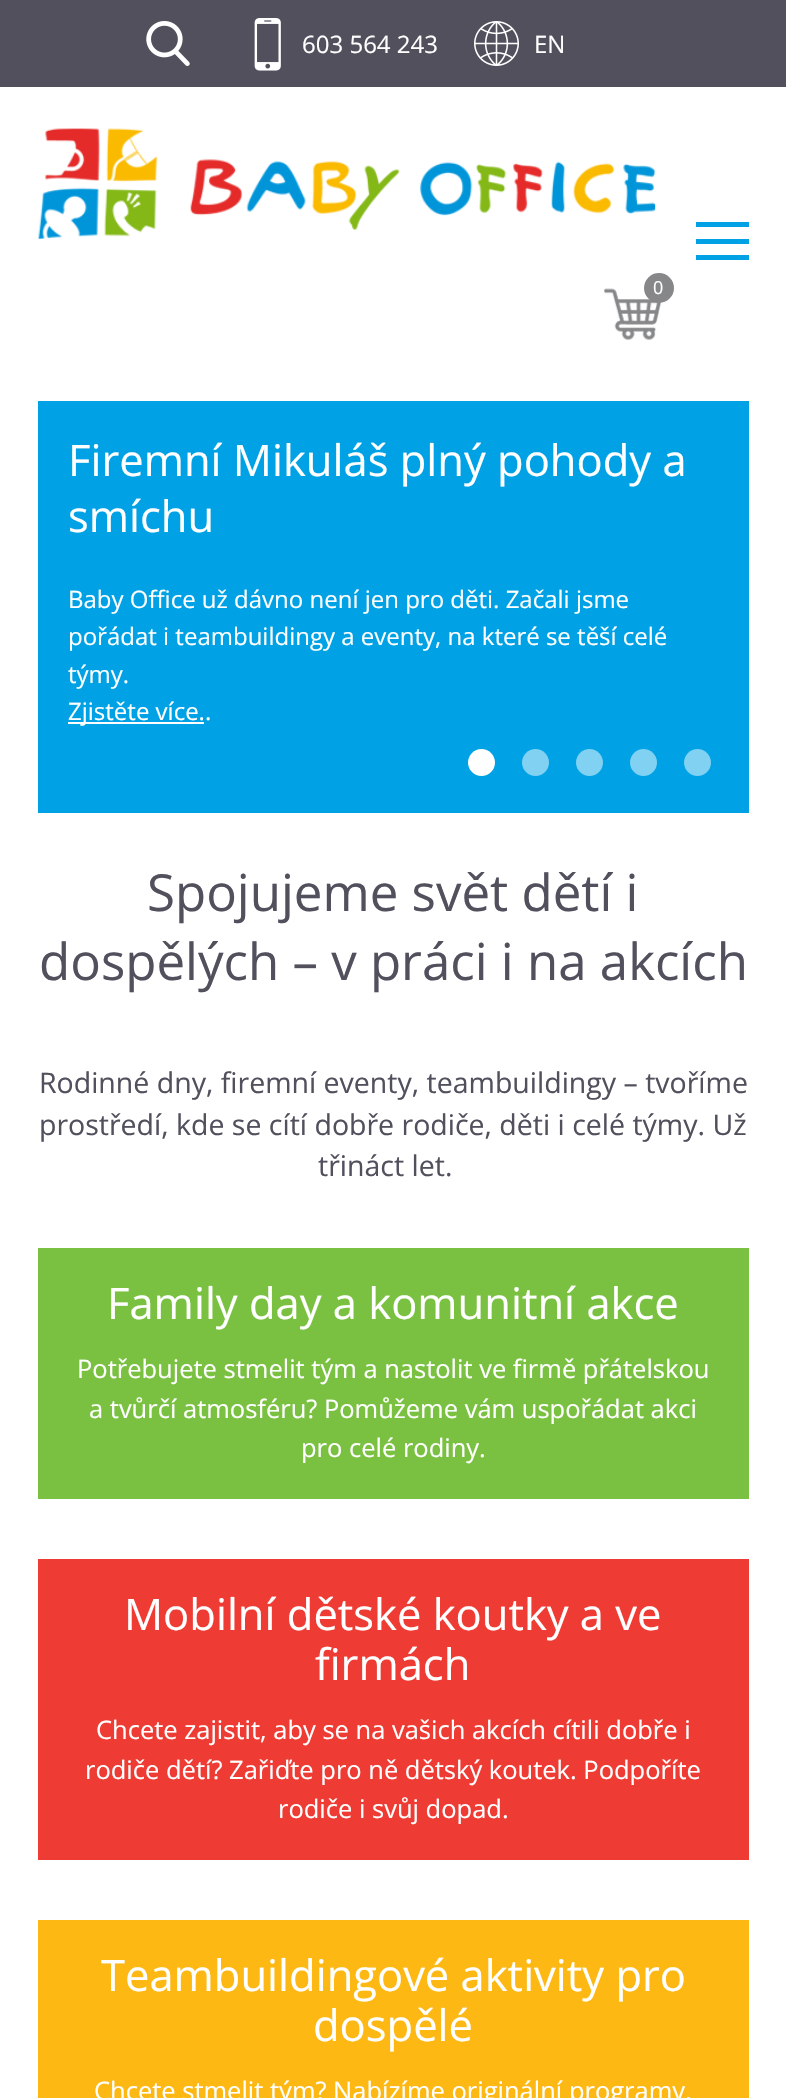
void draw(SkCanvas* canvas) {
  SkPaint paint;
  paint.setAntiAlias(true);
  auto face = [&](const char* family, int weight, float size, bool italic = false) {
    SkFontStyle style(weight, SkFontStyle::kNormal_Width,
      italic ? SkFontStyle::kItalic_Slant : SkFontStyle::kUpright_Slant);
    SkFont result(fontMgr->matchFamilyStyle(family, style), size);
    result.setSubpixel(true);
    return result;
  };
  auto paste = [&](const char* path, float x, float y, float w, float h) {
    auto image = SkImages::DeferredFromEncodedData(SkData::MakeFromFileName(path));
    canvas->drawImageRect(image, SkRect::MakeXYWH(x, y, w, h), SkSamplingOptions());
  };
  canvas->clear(0xffffffff);
  paint.setColor(0xff52505d);
  canvas->drawRect(SkRect::MakeXYWH(0, 0, 786, 87), paint);
  paste("img/1.png", 146, 21, 44, 45);
  paste("img/2.png", 254, 18, 27, 53);
  paste("img/3.png", 474, 21, 45, 45);
  paste("img/4.png", 38, 128, 618, 111);
  {
    const struct { float x, y, w, h; SkColor color; } items[] = {
      {696, 222, 53, 5, 0xff00a2e5},
      {696, 239, 53, 5, 0xff00a2e5},
      {696, 255, 53, 5, 0xff00a2e5},
    };
    for (auto [x, y, w, h, color] : items) {
      paint.setColor(color);
      canvas->drawRect(SkRect::MakeXYWH(x, y, w, h), paint);
    }
  }
  paste("img/5.png", 604, 288, 58, 52);
  paint.setColor(0xff868789);
  canvas->drawCircle(659, 288, 15, paint);
  paint.setColor(0xff00a2e5);
  canvas->drawRect(SkRect::MakeXYWH(38, 401, 711, 412), paint);
  paint.setColor(0xffffffff);
  canvas->drawRect(SkRect::MakeXYWH(68, 722, 136, 2), paint);
  canvas->drawCircle(481.5f, 762.5f, 13.5f, paint);
  paint.setColor(0xff80d1f2);
  canvas->drawCircle(535.5f, 762.5f, 13.5f, paint);
  canvas->drawCircle(589.5f, 762.5f, 13.5f, paint);
  canvas->drawCircle(643.5f, 762.5f, 13.5f, paint);
  canvas->drawCircle(697.5f, 762.5f, 13.5f, paint);
  {
    const struct { float x, y, w, h; SkColor color; } items[] = {
      {38, 1248, 711, 251, 0xff7ac142},
      {38, 1559, 711, 301, 0xffee3b33},
      {38, 1920, 711, 178, 0xfffdb813},
    };
    for (auto [x, y, w, h, color] : items) {
      paint.setColor(color);
      canvas->drawRect(SkRect::MakeXYWH(x, y, w, h), paint);
    }
  }
  auto f0 = face("Open Sans", 400, 24);
  paint.setColor(0xffffffff);
  canvas->drawString("603 564 243", 302, 53, f0, paint);
  canvas->drawString("EN", 534, 53, f0, paint);
  auto f1 = face("Open Sans", 400, 18);
  canvas->drawString("0", 653, 294, f1, paint);
  auto f2 = face("Open Sans", 400, 43.5f);
  canvas->drawString("Firemní Mikuláš plný pohody a", 68, 476, f2, paint);
  canvas->drawString("smíchu", 68, 532, f2, paint);
  {
    const struct { const char* s; float x, y; } items[] = {
      {"Baby Office už dávno není jen pro děti. Začali jsme", 68, 608},
      {"pořádat i teambuildingy a eventy, na které se těší celé", 68, 645},
      {"týmy.", 68, 683},
      {"Zjistěte více..", 68, 720},
    };
    for (auto [s, x, y] : items) {
      canvas->drawString(s, x, y, f0, paint);
    }
  }
  auto f3 = face("Open Sans", 400, 51);
  paint.setColor(0xff52505d);
  canvas->drawString("Spojujeme svět dětí i", 147, 911, f3, paint);
  canvas->drawString("dospělých – v práci i na akcích", 39, 980, f3, paint);
  auto f4 = face("Open Sans", 400, 28.5f);
  {
    const struct { const char* s; float x, y; } items[] = {
      {"Rodinné dny, firemní eventy, teambuildingy – tvoříme", 39, 1093},
      {"prostředí, kde se cítí dobře rodiče, děti i celé týmy. Už", 39, 1135},
      {"třináct let.", 318, 1176},
    };
    for (auto [s, x, y] : items) {
      canvas->drawString(s, x, y, f4, paint);
    }
  }
  paint.setColor(0xffffffff);
  canvas->drawString("Family day a komunitní akce", 107, 1319, f2, paint);
  auto f5 = face("Open Sans", 400, 25.5f);
  {
    const struct { const char* s; float x, y; } items[] = {
      {"Potřebujete stmelit tým a nastolit ve firmě přátelskou", 77, 1378},
      {"a tvůrčí atmosféru? Pomůžeme vám uspořádat akci", 89, 1418},
      {"pro celé rodiny.", 301, 1457},
    };
    for (auto [s, x, y] : items) {
      canvas->drawString(s, x, y, f5, paint);
    }
  }
  canvas->drawString("Mobilní dětské koutky a ve", 124, 1630, f2, paint);
  canvas->drawString("firmách", 315, 1680, f2, paint);
  {
    const struct { const char* s; float x, y; } items[] = {
      {"Chcete zajistit, aby se na vašich akcích cítili dobře i", 96, 1739},
      {"rodiče dětí? Zařiďte pro ně dětský koutek. Podpoříte", 85, 1779},
      {"rodiče i svůj dopad.", 278, 1818},
    };
    for (auto [s, x, y] : items) {
      canvas->drawString(s, x, y, f5, paint);
    }
  }
  canvas->drawString("Teambuildingové aktivity pro", 101, 1991, f2, paint);
  canvas->drawString("dospělé", 313, 2041, f2, paint);
  canvas->drawString("Chcete stmelit tým? Nabízíme originální programy,", 94, 2100, f5, paint);
}
